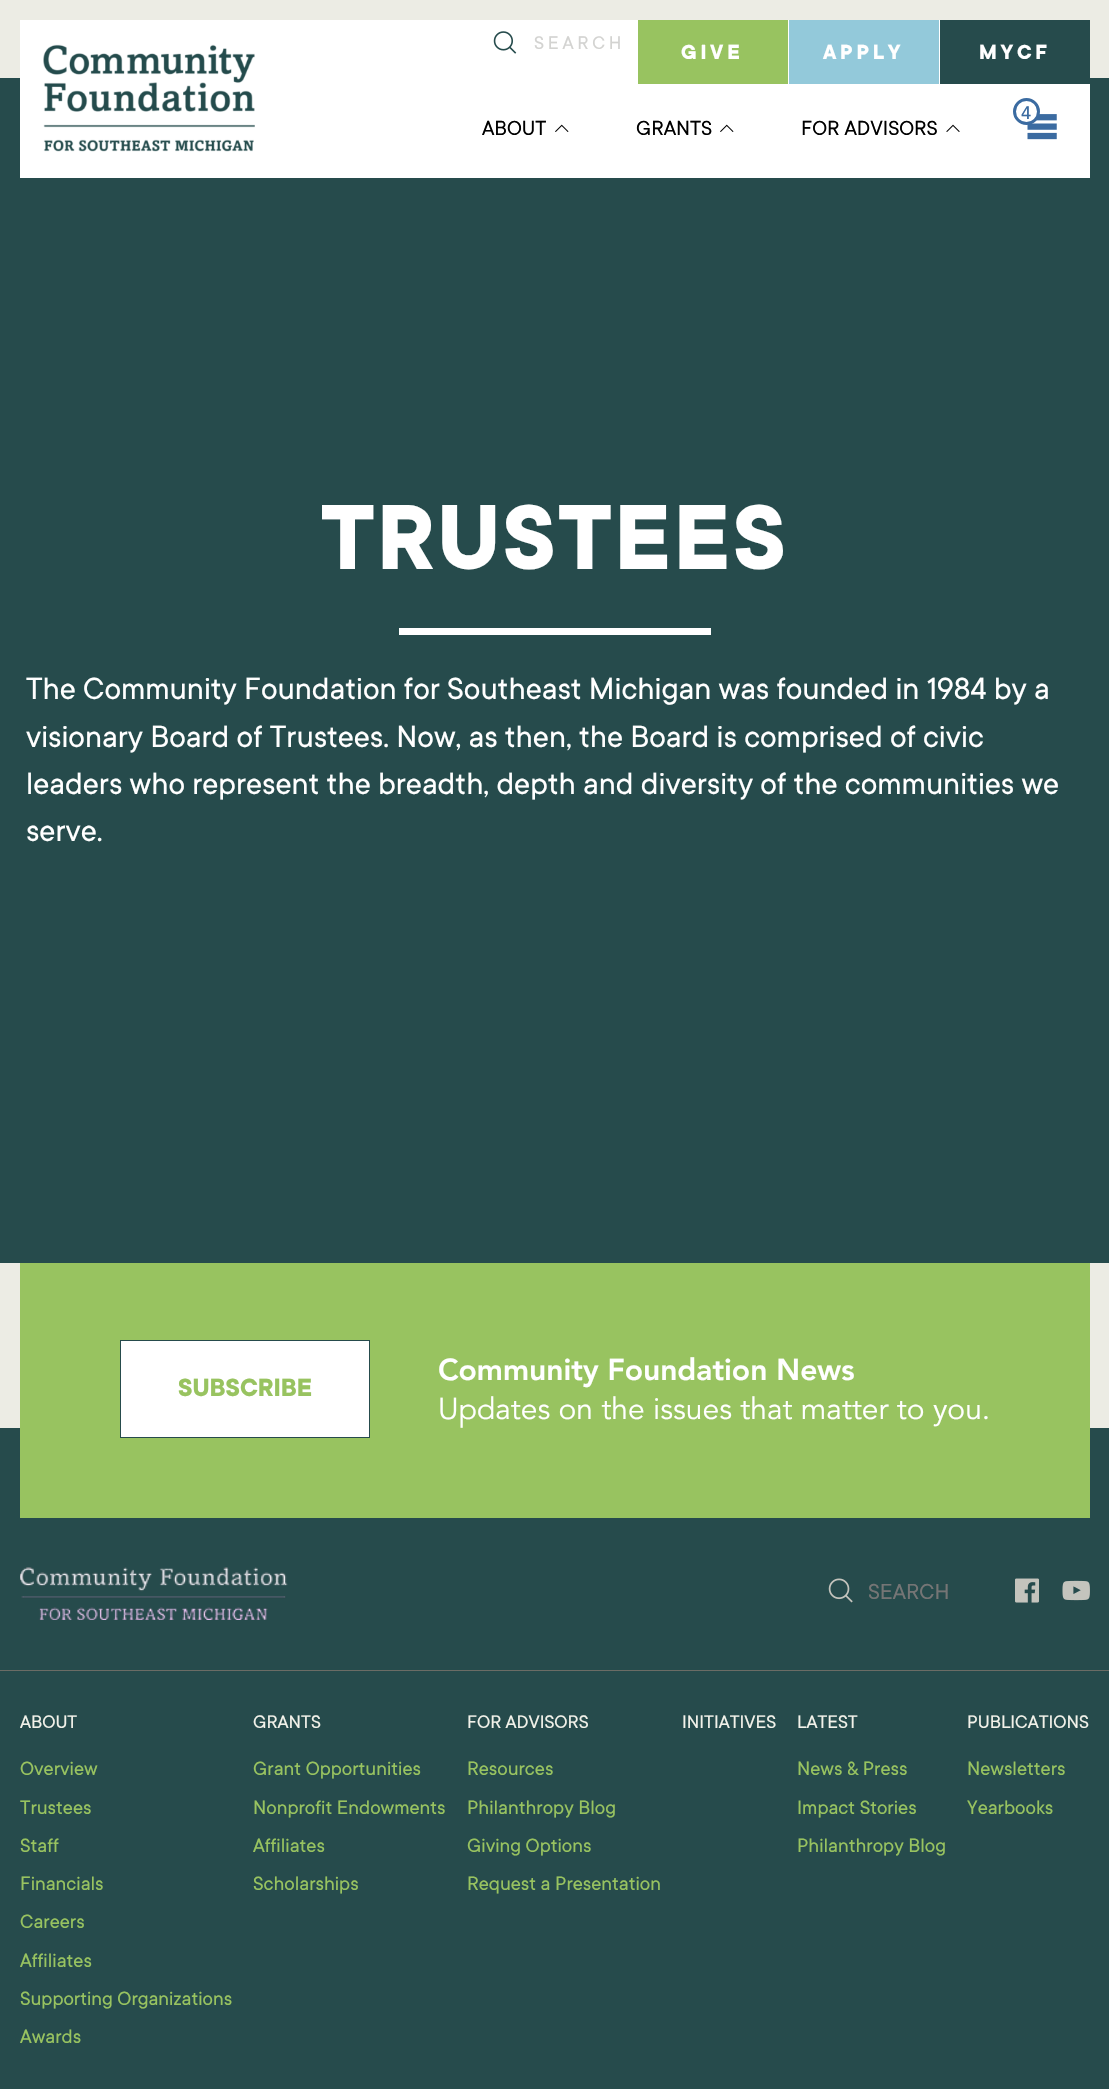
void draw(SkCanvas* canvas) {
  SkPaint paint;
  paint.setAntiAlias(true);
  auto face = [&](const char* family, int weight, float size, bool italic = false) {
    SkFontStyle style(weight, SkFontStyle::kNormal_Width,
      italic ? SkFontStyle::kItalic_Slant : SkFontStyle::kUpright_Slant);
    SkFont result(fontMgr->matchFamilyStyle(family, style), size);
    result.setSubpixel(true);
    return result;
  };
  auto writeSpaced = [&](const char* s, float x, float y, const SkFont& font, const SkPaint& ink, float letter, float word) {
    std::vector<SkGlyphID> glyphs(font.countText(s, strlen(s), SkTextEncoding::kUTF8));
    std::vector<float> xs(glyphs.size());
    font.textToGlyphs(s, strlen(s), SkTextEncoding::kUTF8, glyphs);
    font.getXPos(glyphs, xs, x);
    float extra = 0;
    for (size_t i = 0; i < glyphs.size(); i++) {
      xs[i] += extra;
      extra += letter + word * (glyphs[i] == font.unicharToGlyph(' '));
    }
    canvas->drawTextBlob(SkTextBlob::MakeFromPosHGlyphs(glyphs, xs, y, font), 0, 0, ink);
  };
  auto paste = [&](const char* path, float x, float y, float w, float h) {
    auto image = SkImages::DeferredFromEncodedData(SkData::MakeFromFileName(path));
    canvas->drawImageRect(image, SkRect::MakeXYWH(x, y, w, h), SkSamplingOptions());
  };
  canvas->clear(0xffecece4);
  paint.setColor(0xff264b4c);
  canvas->drawRect(SkRect::MakeXYWH(0, 78, 1109, 1185), paint);
  paint.setColor(0xffffffff);
  canvas->drawRect(SkRect::MakeXYWH(20, 20, 1070, 158), paint);
  paste("img/1.png", 43, 44, 212, 108);
  paste("img/2.png", 493, 31, 24, 23);
  {
    const struct { float x, y, w, h; SkColor color; } items[] = {
      {638, 20, 150, 64, 0xff98c360},
      {789, 20, 150, 64, 0xff93c9da},
      {940, 20, 150, 64, 0xff264b4c},
    };
    for (auto [x, y, w, h, color] : items) {
      paint.setColor(color);
      canvas->drawRect(SkRect::MakeXYWH(x, y, w, h), paint);
    }
  }
  paste("img/3.png", 1027, 114, 30, 26);
  paint.setColor(0xffffffff);
  canvas->drawCircle(1026.5f, 111.5f, 12, paint);
  paint.setStroke(true);
  paint.setStrokeWidth(3);
  paint.setColor(0xff3b6ba1);
  canvas->drawCircle(1026.5f, 111.5f, 12, paint);
  paste("img/4.png", 555, 124, 14, 8);
  paste("img/4.png", 720, 124, 14, 8);
  paste("img/5.png", 946, 124, 14, 8);
  paint.setStroke(false);
  {
    const struct { float x, y, w, h; SkColor color; } items[] = {
      {399, 628, 312, 7, 0xffffffff},
      {0, 1428, 1109, 661, 0xff264b4c},
      {20, 1263, 1070, 255, 0xff98c360},
    };
    for (auto [x, y, w, h, color] : items) {
      paint.setColor(color);
      canvas->drawRect(SkRect::MakeXYWH(x, y, w, h), paint);
    }
  }
  paint.setColor(0xffffffff);
  canvas->drawRect(SkRect::MakeXYWH(120.5f, 1340.5f, 249, 97), paint);
  paint.setStroke(true);
  paint.setStrokeWidth(1);
  paint.setColor(0xff264b4c);
  canvas->drawRect(SkRect::MakeXYWH(120.5f, 1340.5f, 249, 97), paint);
  paint.setStroke(false);
  paint.setColor(0xff6b6c65);
  canvas->drawRect(SkRect::MakeXYWH(0, 1670, 1109, 1), paint);
  paste("img/6.png", 20, 1567, 268, 53);
  paste("img/7.png", 828, 1578, 25, 25);
  paste("img/8.png", 1015, 1578, 24, 25);
  paste("img/9.png", 1062, 1580, 28, 21);
  auto f0 = face("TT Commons", 400, 20.25f);
  paint.setColor(0xffd3d3d1);
  writeSpaced("SEARCH", 534, 49, f0, paint, 3.75f, 0);
  auto f1 = face("TT Commons", 700, 22.5f);
  paint.setColor(0xffffffff);
  {
    const struct { const char* s; float x, y; } items[] = {
      {"GIVE", 681, 59},
      {"APPLY", 823, 59},
      {"MYCF", 979, 59},
    };
    for (auto [s, x, y] : items) {
      writeSpaced(s, x, y, f1, paint, 3.75f, 0);
    }
  }
  auto f2 = face("Avenir", 500, 18);
  paint.setColor(0xff3b6ba1);
  canvas->drawString("4", 1021, 119, f2, paint);
  auto f3 = face("TT Commons", 400, 22.5f);
  paint.setColor(0xff000000);
  {
    const struct { const char* s; float x, y; } items[] = {
      {"ABOUT", 482, 135},
      {"GRANTS", 636, 135},
      {"FOR ADVISORS", 801, 135},
    };
    for (auto [s, x, y] : items) {
      canvas->drawString(s, x, y, f3, paint);
    }
  }
  auto f4 = face("TT Commons", 700, 101.5f);
  paint.setColor(0xffffffff);
  writeSpaced("TRUSTEES", 321, 569, f4, paint, 2.5f, 0);
  auto f5 = face("TT Commons", 400, 33.8f);
  {
    const struct { const char* s; float x, y; } items[] = {
      {"The Community Foundation for Southeast Michigan was founded in 1984 by a", 26, 699},
      {"visionary Board of Trustees. Now, as then, the Board is comprised of civic", 26, 747},
      {"leaders who represent the breadth, depth and diversity of the communities we", 26, 794},
      {"serve.", 26, 841},
    };
    for (auto [s, x, y] : items) {
      canvas->drawString(s, x, y, f5, paint);
    }
  }
  auto f6 = face("TT Commons", 700, 27.5f);
  paint.setColor(0xff98c360);
  canvas->drawString("SUBSCRIBE", 178, 1396, f6, paint);
  auto f7 = face("Avenir", 900, 30);
  paint.setColor(0xffffffff);
  canvas->drawString("Community Foundation News", 438, 1380, f7, paint);
  auto f8 = face("Avenir", 400, 30);
  canvas->drawString("Updates on the issues that matter to you.", 438, 1419, f8, paint);
  auto f9 = face("TT Commons", 400, 24);
  paint.setColor(0xff757575);
  canvas->drawString("SEARCH", 868, 1599, f9, paint);
  auto f10 = face("TT Commons", 400, 20);
  paint.setColor(0xfff2f2ea);
  canvas->drawString("ABOUT", 20, 1728, f10, paint);
  auto f11 = face("TT Commons", 400, 21.25f);
  paint.setColor(0xff98c360);
  {
    const struct { const char* s; float x, y; } items[] = {
      {"Overview", 20, 1775},
      {"Trustees", 20, 1814},
      {"Staff", 20, 1852},
      {"Financials", 20, 1890},
      {"Careers", 20, 1928},
      {"Affiliates", 20, 1967},
      {"Supporting Organizations", 20, 2005},
      {"Awards", 20, 2043},
    };
    for (auto [s, x, y] : items) {
      canvas->drawString(s, x, y, f11, paint);
    }
  }
  paint.setColor(0xfff2f2ea);
  canvas->drawString("GRANTS", 253, 1728, f10, paint);
  paint.setColor(0xff98c360);
  {
    const struct { const char* s; float x, y; } items[] = {
      {"Grant Opportunities", 253, 1775},
      {"Nonprofit Endowments", 253, 1814},
      {"Affiliates", 253, 1852},
      {"Scholarships", 253, 1890},
    };
    for (auto [s, x, y] : items) {
      canvas->drawString(s, x, y, f11, paint);
    }
  }
  paint.setColor(0xfff2f2ea);
  canvas->drawString("FOR ADVISORS", 467, 1728, f10, paint);
  paint.setColor(0xff98c360);
  {
    const struct { const char* s; float x, y; } items[] = {
      {"Resources", 467, 1775},
      {"Philanthropy Blog", 467, 1814},
      {"Giving Options", 467, 1852},
      {"Request a Presentation", 467, 1890},
    };
    for (auto [s, x, y] : items) {
      canvas->drawString(s, x, y, f11, paint);
    }
  }
  paint.setColor(0xfff2f2ea);
  canvas->drawString("INITIATIVES", 682, 1728, f10, paint);
  canvas->drawString("LATEST", 797, 1728, f10, paint);
  paint.setColor(0xff98c360);
  {
    const struct { const char* s; float x, y; } items[] = {
      {"News & Press", 797, 1775},
      {"Impact Stories", 797, 1814},
      {"Philanthropy Blog", 797, 1852},
    };
    for (auto [s, x, y] : items) {
      canvas->drawString(s, x, y, f11, paint);
    }
  }
  paint.setColor(0xfff2f2ea);
  canvas->drawString("PUBLICATIONS", 967, 1728, f10, paint);
  paint.setColor(0xff98c360);
  canvas->drawString("Newsletters", 967, 1775, f11, paint);
  canvas->drawString("Yearbooks", 967, 1814, f11, paint);
}
